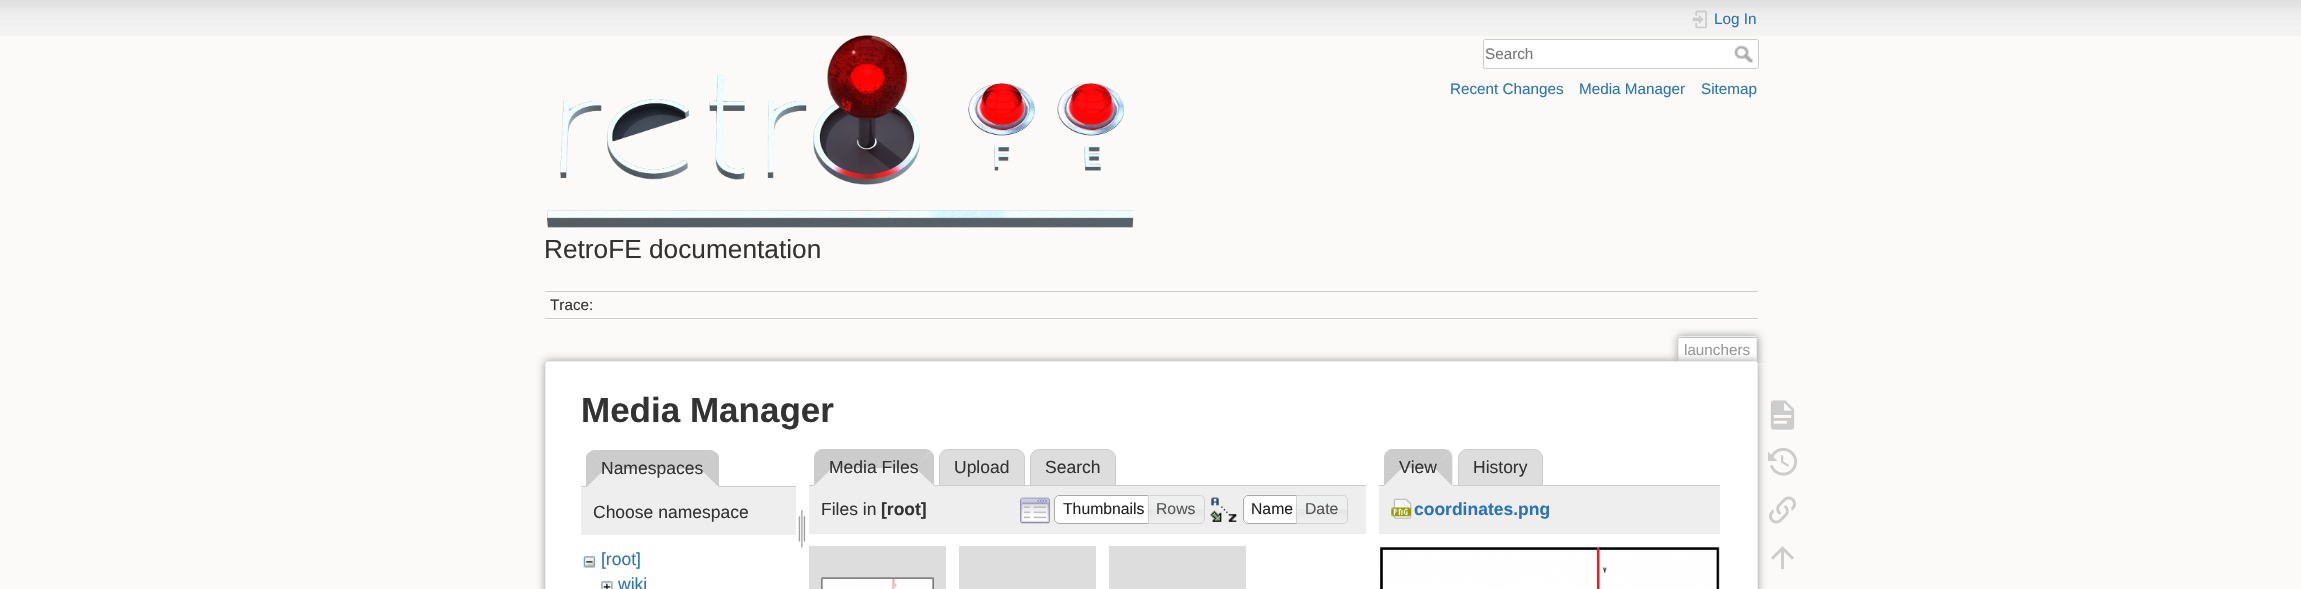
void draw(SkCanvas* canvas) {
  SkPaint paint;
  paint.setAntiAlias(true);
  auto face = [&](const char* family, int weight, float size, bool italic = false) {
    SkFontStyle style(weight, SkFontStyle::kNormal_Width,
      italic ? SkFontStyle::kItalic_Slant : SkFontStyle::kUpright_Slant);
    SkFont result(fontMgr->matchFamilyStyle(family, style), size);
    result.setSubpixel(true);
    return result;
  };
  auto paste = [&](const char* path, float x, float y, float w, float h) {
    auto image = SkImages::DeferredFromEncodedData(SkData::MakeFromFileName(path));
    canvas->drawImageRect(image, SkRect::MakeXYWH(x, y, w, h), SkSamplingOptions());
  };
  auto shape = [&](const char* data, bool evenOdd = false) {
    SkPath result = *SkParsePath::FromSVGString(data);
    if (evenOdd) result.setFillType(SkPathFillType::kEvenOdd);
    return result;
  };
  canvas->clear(0xfffbfaf9);
  paste("img/1.png", 0, 0, 2301, 36);
  paste("img/2.png", 1692, 10, 15, 19);
  paint.setColor(0xffffffff);
  canvas->drawRoundRect(SkRect::MakeXYWH(1483.5f, 39.5f, 275, 29), 2, 2, paint);
  paint.setStroke(true);
  paint.setStrokeWidth(1);
  paint.setColor(0xffcccccc);
  canvas->drawRoundRect(SkRect::MakeXYWH(1483.5f, 39.5f, 275, 29), 2, 2, paint);
  paste("img/3.png", 1734, 45, 19, 18);
  paste("img/4.png", 547, 35, 587, 193);
  paint.setStroke(false);
  {
    const struct { float x, y, w, h; SkColor color; } items[] = {
      {545, 291, 1213, 1, 0xffcccccc},
      {545, 319, 1213, 1, 0xffffffff},
      {545, 293, 1213, 1, 0xffffffff},
      {545, 318, 1213, 1, 0xffcccccc},
    };
    for (auto [x, y, w, h, color] : items) {
      paint.setColor(color);
      canvas->drawRect(SkRect::MakeXYWH(x, y, w, h), paint);
    }
  }
  canvas->save();
  canvas->clipRect(SkRect::MakeXYWH(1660, 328, 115, 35));
  paint.setColor(0xff999999);
  paint.setMaskFilter(SkMaskFilter::MakeBlur(kNormal_SkBlurStyle, 4));
  canvas->drawRoundRect(SkRect::MakeXYWH(1678, 336, 80, 27), 2.5f, 2.5f, paint);
  paint.setMaskFilter(nullptr);
  canvas->restore();
  paint.setColor(0xffffffff);
  canvas->drawPath(shape("M1680 338H1755C1755.5 338 1756 338.5 1756 339V363H1679V339C1679 338.5 1679.5 338 1680 338Z"), paint);
  {
    const struct { float x, y, w, h; SkColor color; } items[] = {
      {1679, 336, 77, 1, 0xffeeeeee},
      {1756, 338, 1, 25, 0xffeeeeee},
      {1678, 338, 1, 25, 0xffeeeeee},
    };
    for (auto [x, y, w, h, color] : items) {
      paint.setColor(color);
      canvas->drawRect(SkRect::MakeXYWH(x, y, w, h), paint);
    }
  }
  paint.setColor(0xff999999);
  paint.setMaskFilter(SkMaskFilter::MakeBlur(kNormal_SkBlurStyle, 4.5f));
  canvas->drawRoundRect(SkRect::MakeXYWH(545, 361, 1213, 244), 2.5f, 2.5f, paint);
  paint.setMaskFilter(nullptr);
  paint.setColor(0xffffffff);
  canvas->drawRoundRect(SkRect::MakeXYWH(545.5f, 361.5f, 1212, 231), 2, 2, paint);
  paint.setStroke(true);
  paint.setColor(0xffeeeeee);
  canvas->drawRoundRect(SkRect::MakeXYWH(545.5f, 361.5f, 1212, 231), 2, 2, paint);
  paint.setStroke(false);
  canvas->drawRect(SkRect::MakeXYWH(581, 487, 215, 48), paint);
  paint.setColor(0xffcccccc);
  canvas->drawRect(SkRect::MakeXYWH(581, 486, 215, 1), paint);
  paint.setColor(0xffeeeeee);
  canvas->drawPath(shape("M595 450H710C715 450 719 454 719 459V488H586V459C586 454 590 450 595 450Z"), paint);
  paint.setColor(0xffcccccc);
  canvas->drawPath(shape("M595 450H710C712 450 715 451 716 453L700 469H605L589 453C590 451 593 450 595 450Z"), paint);
  canvas->drawPath(shape("M716 452.5L700 469L719 487.5V457C718.5 455 717.5 453.5 716 452.5Z"), paint);
  paint.setColor(0xffeeeeee);
  canvas->drawPath(shape("M719 488L700 469H605L586 488Z"), paint);
  paint.setColor(0xffcccccc);
  canvas->drawPath(shape("M586 487.5L605 469L589 452.5C587.5 453.5 586.5 455 586 457Z"), paint);
  paste("img/5.png", 798, 509, 8, 39);
  paste("img/6.png", 583, 556, 12, 12);
  paste("img/7.png", 601, 581, 12, 8);
  paint.setColor(0xffdddddd);
  canvas->drawPath(shape("M948 449.5H1016C1020.5 449.5 1024.5 453.5 1024.5 458V485.5H939.5V458C939.5 453.5 943.5 449.5 948 449.5Z"), paint);
  paint.setStroke(true);
  paint.setColor(0xffcccccc);
  canvas->drawPath(shape("M948 449.5H1016C1020.5 449.5 1024.5 453.5 1024.5 458V485.5H939.5V458C939.5 453.5 943.5 449.5 948 449.5Z"), paint);
  paint.setStroke(false);
  paint.setColor(0xffdddddd);
  canvas->drawPath(shape("M1039 449.5H1107C1111.5 449.5 1115.5 453.5 1115.5 458V485.5H1030.5V458C1030.5 453.5 1034.5 449.5 1039 449.5Z"), paint);
  paint.setStroke(true);
  paint.setColor(0xffcccccc);
  canvas->drawPath(shape("M1039 449.5H1107C1111.5 449.5 1115.5 453.5 1115.5 458V485.5H1030.5V458C1030.5 453.5 1034.5 449.5 1039 449.5Z"), paint);
  paint.setStroke(false);
  canvas->drawRect(SkRect::MakeXYWH(809, 485, 557, 1), paint);
  paint.setColor(0xffeeeeee);
  canvas->drawPath(shape("M823 449H925C930 449 934 453 934 458V486H814V458C814 453 818 449 823 449Z"), paint);
  paint.setColor(0xffcccccc);
  canvas->drawPath(shape("M822 449C820 449 818 450 817 452L832 468H915L931 451C930 450 927 449 925 449Z"), paint);
  canvas->drawPath(shape("M934 486L915 467.5L931 451.5C932.5 452.5 933.5 454 934 456Z"), paint);
  paint.setColor(0xffeeeeee);
  canvas->drawPath(shape("M934 486L915 468H832L814 486Z"), paint);
  paint.setColor(0xffcccccc);
  canvas->drawPath(shape("M816.5 451.5C815 453 814 455.5 814 458V486L832.5 467.5Z"), paint);
  paint.setColor(0xffeeeeee);
  canvas->drawRect(SkRect::MakeXYWH(809, 486, 557, 48), paint);
  paste("img/8.png", 1020, 497, 30, 27);
  paint.setColor(0xffffffff);
  canvas->drawPath(shape("M1059 495H1154V524H1059C1056 524 1054 522 1054 519V500C1054 497 1056 495 1059 495Z"), paint);
  paste("img/9.png", 1054, 495, 3, 28);
  paint.setStroke(true);
  paint.setColor(0xffaaaaaa);
  canvas->drawPath(shape("M1059 495.5H1153.5V523.5H1059C1056.5 523.5 1054.5 521.5 1054.5 519V500C1054.5 497.5 1056.5 495.5 1059 495.5Z"), paint);
  paste("img/10.png", 1147, 495, 58, 29);
  paint.setColor(0xffd3d3d3);
  canvas->drawPath(shape("M1148.5 495.5H1200C1202.5 495.5 1204.5 497.5 1204.5 500V519C1204.5 521.5 1202.5 523.5 1200 523.5H1148.5Z"), paint);
  paste("img/11.png", 1210, 497, 27, 25);
  paint.setStroke(false);
  paint.setColor(0xffffffff);
  canvas->drawPath(shape("M1248 495H1303V524H1248C1245 524 1243 522 1243 519V500C1243 497 1245 495 1248 495Z"), paint);
  paste("img/12.png", 1242, 495, 4, 28);
  paint.setStroke(true);
  paint.setColor(0xffaaaaaa);
  canvas->drawPath(shape("M1248 495.5H1302.5V523.5H1248C1245.5 523.5 1243.5 521.5 1243.5 519V500C1243.5 497.5 1245.5 495.5 1248 495.5Z"), paint);
  paste("img/13.png", 1297, 495, 50, 29);
  paint.setColor(0xffd3d3d3);
  canvas->drawPath(shape("M1296.5 495.5H1343C1345.5 495.5 1347.5 497.5 1347.5 500V519C1347.5 521.5 1345.5 523.5 1343 523.5H1296.5Z"), paint);
  paint.setStroke(false);
  paint.setColor(0xffdddddd);
  canvas->drawRect(SkRect::MakeXYWH(809, 546, 137, 43), paint);
  paste("img/14.png", 821, 577, 113, 12);
  canvas->drawRect(SkRect::MakeXYWH(959, 546, 137, 43), paint);
  canvas->drawRect(SkRect::MakeXYWH(1109, 546, 137, 43), paint);
  canvas->drawPath(shape("M1467 449.5H1534C1538.5 449.5 1542.5 453.5 1542.5 458V485.5H1458.5V458C1458.5 453.5 1462.5 449.5 1467 449.5Z"), paint);
  paint.setStroke(true);
  paint.setColor(0xffcccccc);
  canvas->drawPath(shape("M1467 449.5H1534C1538.5 449.5 1542.5 453.5 1542.5 458V485.5H1458.5V458C1458.5 453.5 1462.5 449.5 1467 449.5Z"), paint);
  paint.setStroke(false);
  canvas->drawRect(SkRect::MakeXYWH(1379, 485, 341, 1), paint);
  paint.setColor(0xffeeeeee);
  canvas->drawPath(shape("M1393 449H1444C1449 449 1453 453 1453 458V486H1384V458C1384 453 1388 449 1393 449Z"), paint);
  paint.setColor(0xffcccccc);
  canvas->drawPath(shape("M1392 449C1390 449 1388 450 1387 452L1402 468H1434L1450 451C1448 450 1446 449 1444 449Z"), paint);
  canvas->drawPath(shape("M1452 486V458C1452 455.5 1451 453 1450 451.5L1434 467.5Z"), paint);
  paint.setColor(0xffeeeeee);
  canvas->drawPath(shape("M1452 486L1434 468H1402L1384 486Z"), paint);
  paint.setColor(0xffcccccc);
  canvas->drawPath(shape("M1386.5 451.5C1385 453 1384 455.5 1384 458V486L1402.5 467.5Z"), paint);
  paint.setColor(0xffeeeeee);
  canvas->drawRect(SkRect::MakeXYWH(1379, 486, 341, 48), paint);
  paste("img/15.png", 1391, 498, 21, 21);
  paste("img/16.png", 1380, 547, 340, 42);
  paste("img/17.png", 1770, 400, 25, 30);
  paste("img/18.png", 1768, 448, 29, 28);
  paste("img/19.png", 1769, 496, 27, 28);
  paste("img/20.png", 1771, 546, 23, 24);
  auto f0 = face("Liberation Sans", 400, 15.25f);
  paint.setColor(0xff2b73b7);
  canvas->drawString("Log In", 1714, 24, f0, paint);
  paint.setColor(0xff757575);
  canvas->drawString("Search", 1485, 59, f0, paint);
  paint.setColor(0xff2b73b7);
  {
    const struct { const char* s; float x, y; } items[] = {
      {"Recent Changes", 1450, 94},
      {"Media Manager", 1579, 94},
      {"Sitemap", 1701, 94},
    };
    for (auto [s, x, y] : items) {
      canvas->drawString(s, x, y, f0, paint);
    }
  }
  auto f1 = face("Liberation Sans", 400, 26.25f);
  paint.setColor(0xff333333);
  canvas->drawString("RetroFE documentation", 544, 258, f1, paint);
  canvas->drawString("Trace:", 550, 310, f0, paint);
  paint.setColor(0xff999999);
  canvas->drawString("launchers", 1684, 355, f0, paint);
  auto f2 = face("Liberation Sans", 700, 35);
  paint.setColor(0xff333333);
  canvas->drawString("Media Manager", 581, 422, f2, paint);
  auto f3 = face("Liberation Sans", 400, 17.5f);
  canvas->drawString("Namespaces", 601, 474, f3, paint);
  canvas->drawString("Choose namespace", 593, 518, f3, paint);
  paint.setColor(0xff2b73b7);
  canvas->drawString("[root]", 601, 565, f3, paint);
  canvas->drawString("wiki", 618, 590, f3, paint);
  paint.setColor(0xff333333);
  {
    const struct { const char* s; float x, y; } items[] = {
      {"Media Files", 829, 473},
      {"Upload", 954, 473},
      {"Search", 1045, 473},
      {"Files in", 821, 515},
    };
    for (auto [s, x, y] : items) {
      canvas->drawString(s, x, y, f3, paint);
    }
  }
  auto f4 = face("Liberation Sans", 700, 17.5f);
  canvas->drawString("[root]", 881, 515, f4, paint);
  auto f5 = face("Liberation Sans", 400, 15.75f);
  paint.setColor(0xff212121);
  canvas->drawString("Thumbnails", 1063, 514, f5, paint);
  paint.setColor(0xff555555);
  canvas->drawString("Rows", 1156, 514, f5, paint);
  paint.setColor(0xff212121);
  canvas->drawString("Name", 1251, 514, f5, paint);
  paint.setColor(0xff555555);
  canvas->drawString("Date", 1305, 514, f5, paint);
  paint.setColor(0xff333333);
  canvas->drawString("View", 1399, 473, f3, paint);
  canvas->drawString("History", 1473, 473, f3, paint);
  paint.setColor(0xff2b73b7);
  canvas->drawString("coordinates.png", 1414, 515, f4, paint);
}
